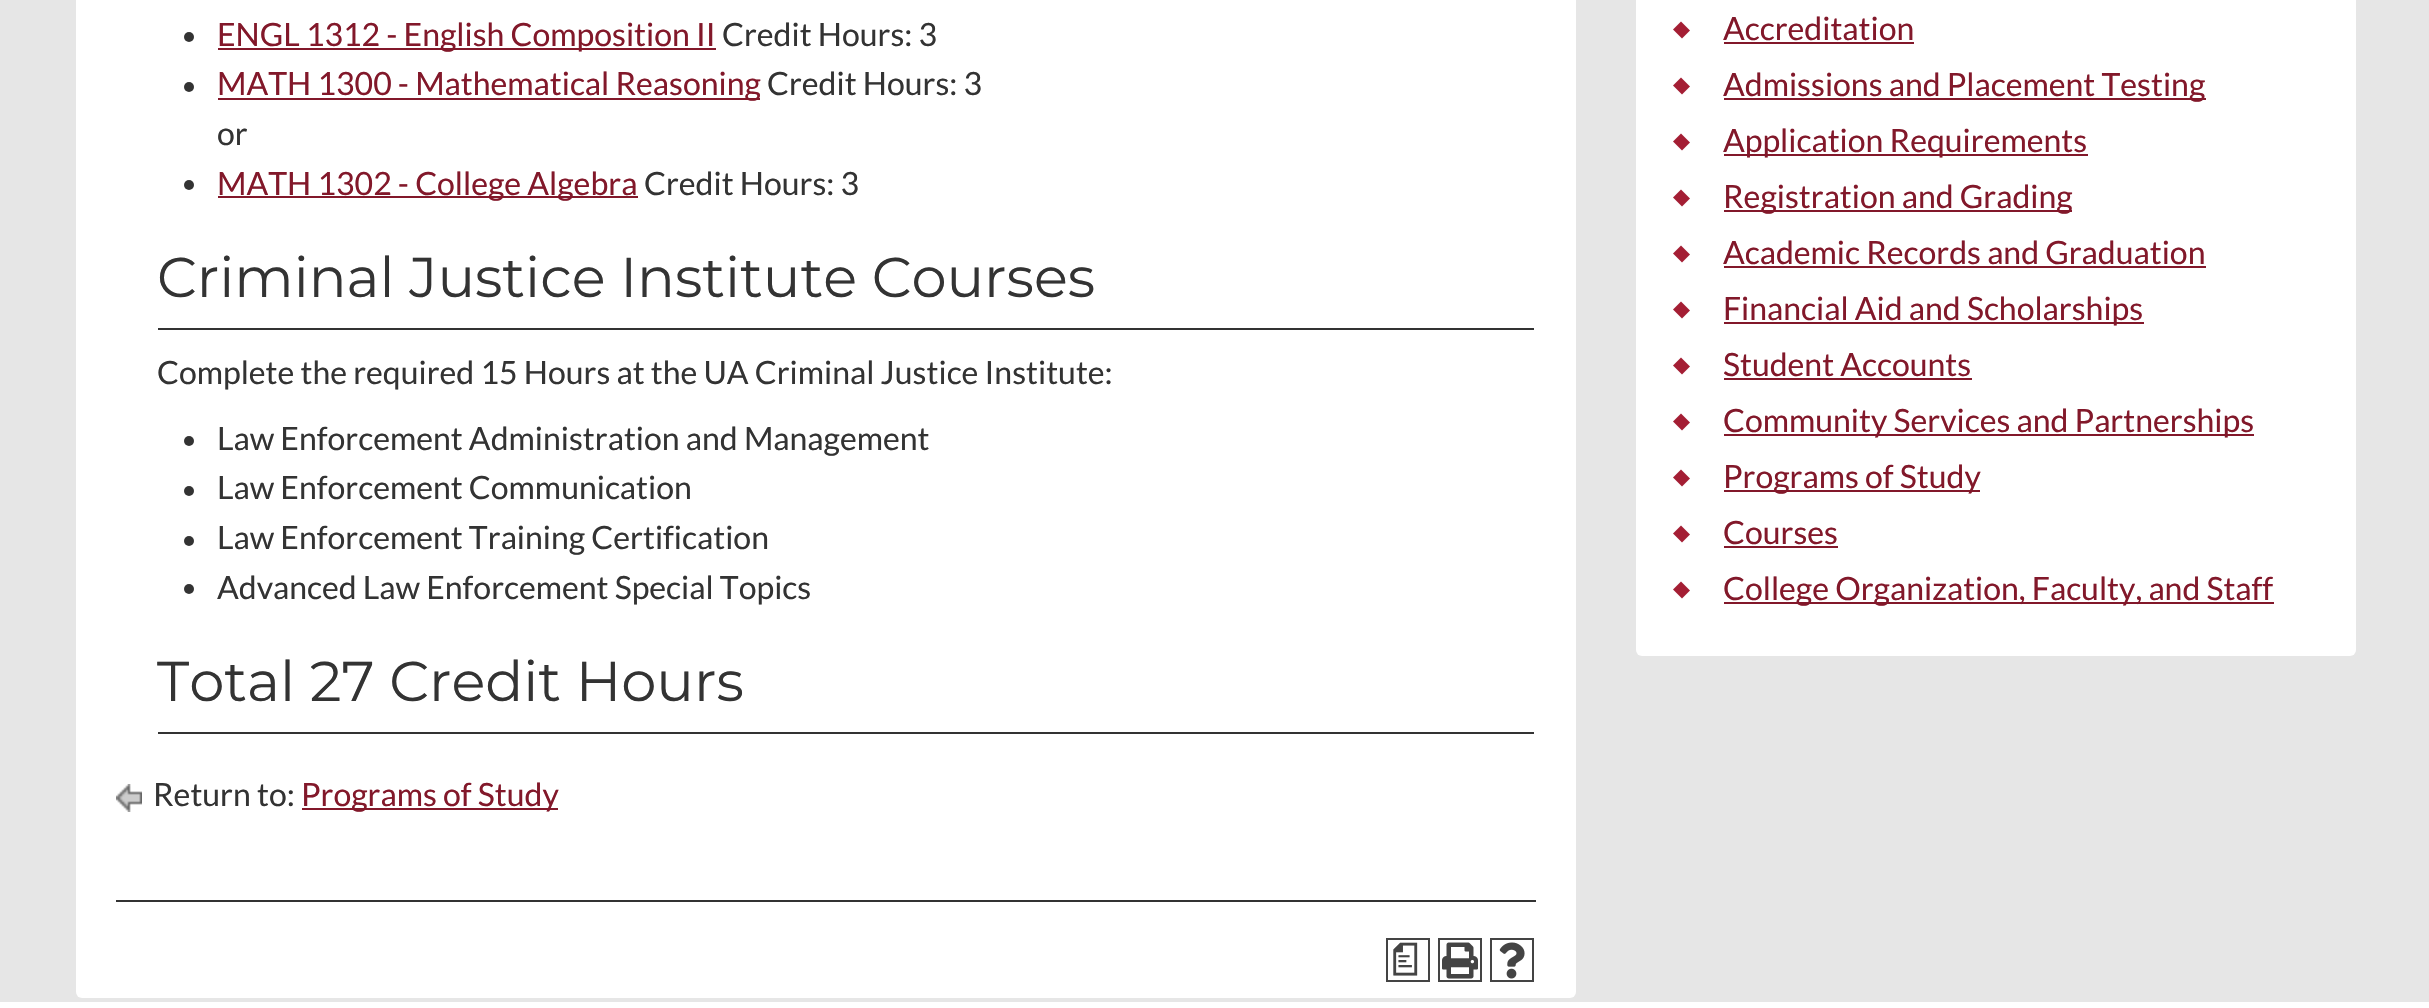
void draw(SkCanvas* canvas) {
  SkPaint paint;
  paint.setAntiAlias(true);
  auto face = [&](const char* family, int weight, float size, bool italic = false) {
    SkFontStyle style(weight, SkFontStyle::kNormal_Width,
      italic ? SkFontStyle::kItalic_Slant : SkFontStyle::kUpright_Slant);
    SkFont result(fontMgr->matchFamilyStyle(family, style), size);
    result.setSubpixel(true);
    return result;
  };
  auto paste = [&](const char* path, float x, float y, float w, float h) {
    auto image = SkImages::DeferredFromEncodedData(SkData::MakeFromFileName(path));
    canvas->drawImageRect(image, SkRect::MakeXYWH(x, y, w, h), SkSamplingOptions());
  };
  auto shape = [&](const char* data, bool evenOdd = false) {
    SkPath result = *SkParsePath::FromSVGString(data);
    if (evenOdd) result.setFillType(SkPathFillType::kEvenOdd);
    return result;
  };
  canvas->clear(0xffffffff);
  paint.setColor(0xffe6e6e6);
  canvas->drawRect(SkRect::MakeXYWH(0, 0, 2429, 1002), paint);
  paint.setColor(0xffffffff);
  canvas->drawRoundRect(SkRect::MakeXYWH(76, -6, 1500, 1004), 6, 6, paint);
  paint.setColor(0xff333333);
  canvas->drawCircle(189, 37, 5, paint);
  paint.setColor(0xff82182a);
  canvas->drawRect(SkRect::MakeXYWH(218, 48, 498, 2), paint);
  paint.setColor(0xff333333);
  canvas->drawCircle(189, 87, 5, paint);
  paint.setColor(0xff82182a);
  canvas->drawRect(SkRect::MakeXYWH(218, 98, 542, 2), paint);
  paint.setColor(0xff333333);
  canvas->drawCircle(189, 185, 5, paint);
  paint.setColor(0xff82182a);
  canvas->drawRect(SkRect::MakeXYWH(218, 196, 420, 2), paint);
  paint.setColor(0xff333333);
  canvas->drawRect(SkRect::MakeXYWH(158, 328, 1376, 2), paint);
  canvas->drawCircle(189, 441, 5, paint);
  canvas->drawCircle(189, 491, 5, paint);
  canvas->drawCircle(189, 541, 5, paint);
  canvas->drawCircle(189, 589, 5, paint);
  canvas->drawRect(SkRect::MakeXYWH(158, 732, 1376, 2), paint);
  paste("img/1.png", 116, 784, 26, 28);
  paint.setColor(0xff82182a);
  canvas->drawRect(SkRect::MakeXYWH(302, 808, 256, 2), paint);
  paint.setColor(0xff333333);
  canvas->drawRect(SkRect::MakeXYWH(116, 900, 1420, 2), paint);
  paint.setStroke(true);
  paint.setStrokeWidth(2);
  paint.setColor(0xff444444);
  canvas->drawRect(SkRect::MakeXYWH(1387, 939, 42, 42), paint);
  canvas->drawRect(SkRect::MakeXYWH(1439, 939, 42, 42), paint);
  paste("img/2.png", 1442, 942, 36, 37);
  canvas->drawRect(SkRect::MakeXYWH(1491, 939, 42, 42), paint);
  paste("img/3.png", 1499, 942, 26, 37);
  paint.setStroke(false);
  paint.setColor(0xffffffff);
  canvas->drawRoundRect(SkRect::MakeXYWH(1636, -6, 720, 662), 6, 6, paint);
  paint.setColor(0xffa41e34);
  canvas->drawPath(shape("M1681 21.5L1690 30.5L1682 38.5L1673 29.5Z"), paint);
  paint.setColor(0xff82182a);
  canvas->drawRect(SkRect::MakeXYWH(1724, 42, 190, 2), paint);
  paint.setColor(0xffa41e34);
  canvas->drawPath(shape("M1681 77.5L1690 86.5L1682 94.5L1673 85.5Z"), paint);
  paint.setColor(0xff82182a);
  canvas->drawRect(SkRect::MakeXYWH(1724, 98, 482, 2), paint);
  paint.setColor(0xffa41e34);
  canvas->drawPath(shape("M1681 133.5L1690 142.5L1682 150.5L1673 141.5Z"), paint);
  paint.setColor(0xff82182a);
  canvas->drawRect(SkRect::MakeXYWH(1724, 154, 364, 2), paint);
  paint.setColor(0xffa41e34);
  canvas->drawPath(shape("M1681 189.5L1690 198.5L1682 206.5L1673 197.5Z"), paint);
  paint.setColor(0xff82182a);
  canvas->drawRect(SkRect::MakeXYWH(1724, 210, 348, 2), paint);
  paint.setColor(0xffa41e34);
  canvas->drawPath(shape("M1681 245.5L1690 254.5L1682 262.5L1673 253.5Z"), paint);
  paint.setColor(0xff82182a);
  canvas->drawRect(SkRect::MakeXYWH(1724, 266, 482, 2), paint);
  paint.setColor(0xffa41e34);
  canvas->drawPath(shape("M1681 301.5L1690 310.5L1682 318.5L1673 309.5Z"), paint);
  paint.setColor(0xff82182a);
  canvas->drawRect(SkRect::MakeXYWH(1724, 322, 420, 2), paint);
  paint.setColor(0xffa41e34);
  canvas->drawPath(shape("M1681 357.5L1690 366.5L1682 374.5L1673 365.5Z"), paint);
  paint.setColor(0xff82182a);
  canvas->drawRect(SkRect::MakeXYWH(1724, 378, 248, 2), paint);
  paint.setColor(0xffa41e34);
  canvas->drawPath(shape("M1681 413.5L1690 422.5L1682 430.5L1673 421.5Z"), paint);
  paint.setColor(0xff82182a);
  canvas->drawRect(SkRect::MakeXYWH(1724, 434, 530, 2), paint);
  paint.setColor(0xffa41e34);
  canvas->drawPath(shape("M1681 469.5L1690 478.5L1682 486.5L1673 477.5Z"), paint);
  paint.setColor(0xff82182a);
  canvas->drawRect(SkRect::MakeXYWH(1724, 490, 256, 2), paint);
  paint.setColor(0xffa41e34);
  canvas->drawPath(shape("M1681 525.5L1690 534.5L1682 542.5L1673 533.5Z"), paint);
  paint.setColor(0xff82182a);
  canvas->drawRect(SkRect::MakeXYWH(1724, 546, 114, 2), paint);
  paint.setColor(0xffa41e34);
  canvas->drawPath(shape("M1681 581.5L1690 590.5L1682 598.5L1673 589.5Z"), paint);
  paint.setColor(0xff82182a);
  canvas->drawRect(SkRect::MakeXYWH(1724, 602, 550, 2), paint);
  auto f0 = face("Lato", 400, 32);
  canvas->drawString("ENGL 1312 - English Composition II", 217, 46, f0, paint);
  paint.setColor(0xff333333);
  canvas->drawString("Credit Hours: 3", 722, 46, f0, paint);
  paint.setColor(0xff82182a);
  canvas->drawString("MATH 1300 - Mathematical Reasoning", 217, 95, f0, paint);
  paint.setColor(0xff333333);
  canvas->drawString("Credit Hours: 3", 767, 95, f0, paint);
  canvas->drawString("or", 217, 145, f0, paint);
  paint.setColor(0xff82182a);
  canvas->drawString("MATH 1302 - College Algebra", 217, 195, f0, paint);
  paint.setColor(0xff333333);
  canvas->drawString("Credit Hours: 3", 644, 195, f0, paint);
  auto f1 = face("Montserrat", 400, 56);
  canvas->drawString("Criminal Justice Institute Courses", 157, 297, f1, paint);
  {
    const struct { const char* s; float x, y; } items[] = {
      {"Complete the required 15 Hours at the UA Criminal Justice Institute:", 157, 384},
      {"Law Enforcement Administration and Management", 217, 450},
      {"Law Enforcement Communication", 217, 499},
      {"Law Enforcement Training Certification", 217, 549},
      {"Advanced Law Enforcement Special Topics", 217, 599},
    };
    for (auto [s, x, y] : items) {
      canvas->drawString(s, x, y, f0, paint);
    }
  }
  canvas->drawString("Total 27 Credit Hours", 157, 701, f1, paint);
  canvas->drawString("Return to:", 153, 806, f0, paint);
  paint.setColor(0xff82182a);
  canvas->drawString("Programs of Study", 301, 806, f0, paint);
  auto f2 = face("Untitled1", 500, 36);
  paint.setColor(0xff444444);
  canvas->drawString("a", 1387, 970, f2, paint);
  paint.setColor(0xff82182a);
  {
    const struct { const char* s; float x, y; } items[] = {
      {"Accreditation", 1723, 40},
      {"Admissions and Placement Testing", 1723, 96},
      {"Application Requirements", 1723, 152},
      {"Registration and Grading", 1723, 208},
      {"Academic Records and Graduation", 1723, 264},
      {"Financial Aid and Scholarships", 1723, 320},
      {"Student Accounts", 1723, 376},
      {"Community Services and Partnerships", 1723, 432},
      {"Programs of Study", 1723, 488},
      {"Courses", 1723, 544},
      {"College Organization, Faculty, and Staff", 1723, 600},
    };
    for (auto [s, x, y] : items) {
      canvas->drawString(s, x, y, f0, paint);
    }
  }
}
